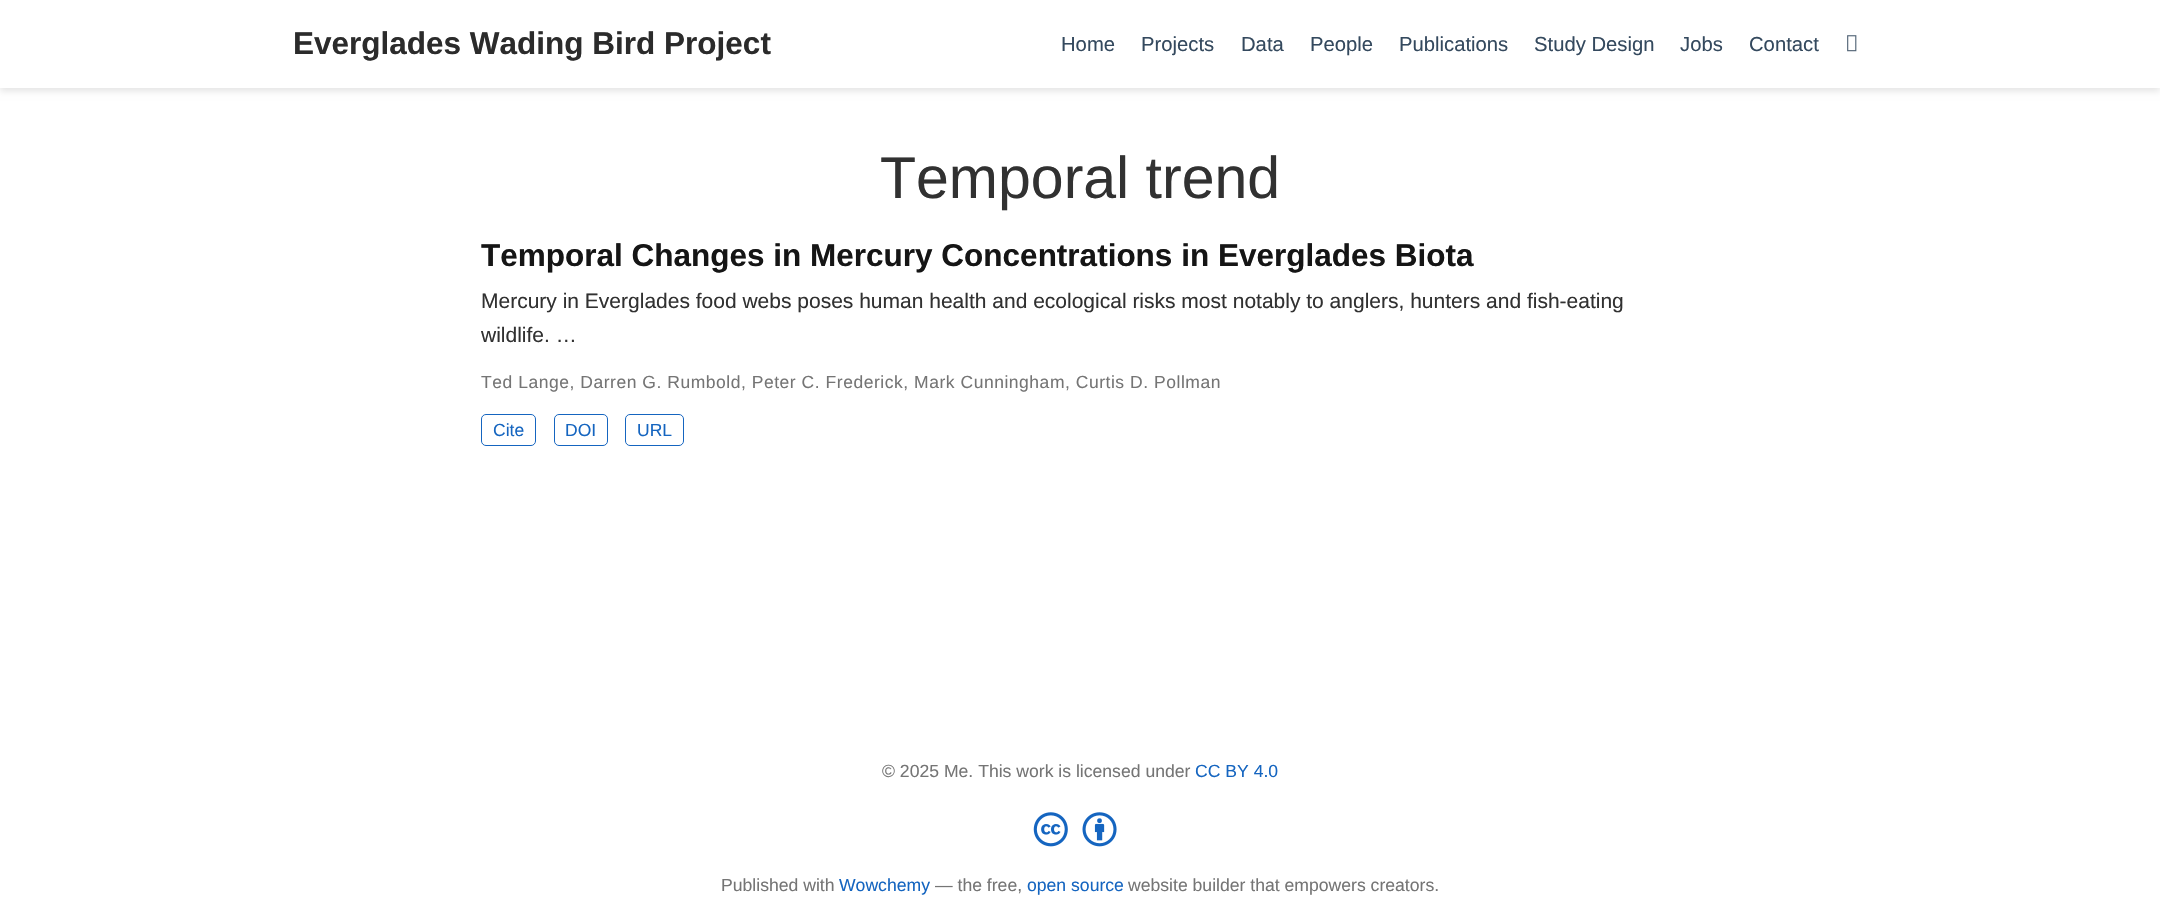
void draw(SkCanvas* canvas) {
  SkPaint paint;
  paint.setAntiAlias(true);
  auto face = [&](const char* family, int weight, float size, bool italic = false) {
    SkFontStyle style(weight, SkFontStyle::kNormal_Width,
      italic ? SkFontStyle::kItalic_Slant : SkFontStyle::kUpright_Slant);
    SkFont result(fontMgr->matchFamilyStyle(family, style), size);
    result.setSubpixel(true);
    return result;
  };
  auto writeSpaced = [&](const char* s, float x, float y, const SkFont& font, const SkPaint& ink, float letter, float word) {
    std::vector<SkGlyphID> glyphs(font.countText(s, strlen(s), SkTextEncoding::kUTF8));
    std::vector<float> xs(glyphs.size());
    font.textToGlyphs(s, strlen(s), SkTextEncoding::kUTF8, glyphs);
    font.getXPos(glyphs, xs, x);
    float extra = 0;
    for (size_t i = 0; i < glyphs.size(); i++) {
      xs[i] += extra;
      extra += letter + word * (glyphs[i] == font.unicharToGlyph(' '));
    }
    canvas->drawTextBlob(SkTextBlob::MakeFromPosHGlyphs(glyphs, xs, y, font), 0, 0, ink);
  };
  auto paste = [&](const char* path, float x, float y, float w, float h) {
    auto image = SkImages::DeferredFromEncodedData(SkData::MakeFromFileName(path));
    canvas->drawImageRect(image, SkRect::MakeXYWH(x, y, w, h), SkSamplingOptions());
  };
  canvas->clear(0xffffffff);
  paint.setColor(0x1c000000);
  paint.setMaskFilter(SkMaskFilter::MakeBlur(kNormal_SkBlurStyle, 3.5f));
  canvas->drawRect(SkRect::MakeXYWH(0, 4, 2160, 87), paint);
  paint.setMaskFilter(nullptr);
  paint.setColor(0xffffffff);
  canvas->drawRect(SkRect::MakeXYWH(0, 0, 2160, 88), paint);
  paste("img/1.png", 1847, 35, 10, 17);
  paint.setStroke(true);
  paint.setStrokeWidth(1);
  paint.setColor(0xff1565c0);
  canvas->drawRoundRect(SkRect::MakeXYWH(481.5f, 414.5f, 54, 31), 4.5f, 4.5f, paint);
  canvas->drawRoundRect(SkRect::MakeXYWH(554.5f, 414.5f, 53, 31), 4.5f, 4.5f, paint);
  canvas->drawRoundRect(SkRect::MakeXYWH(625.5f, 414.5f, 58, 31), 4.5f, 4.5f, paint);
  paste("img/2.png", 1033, 812, 35, 35);
  paste("img/3.png", 1082, 812, 35, 35);
  auto f0 = face("Liberation Sans", 700, 31.5f);
  paint.setStroke(false);
  paint.setColor(0xff2b2b2b);
  canvas->drawString("Everglades Wading Bird Project", 293, 54, f0, paint);
  auto f1 = face("Liberation Sans", 400, 20.25f);
  paint.setColor(0xff34495e);
  {
    const struct { const char* s; float x, y; } items[] = {
      {"Home", 1061, 51},
      {"Projects", 1141, 51},
      {"Data", 1241, 51},
      {"People", 1310, 51},
      {"Publications", 1399, 51},
      {"Study Design", 1534, 51},
      {"Jobs", 1680, 51},
      {"Contact", 1749, 51},
    };
    for (auto [s, x, y] : items) {
      canvas->drawString(s, x, y, f1, paint);
    }
  }
  auto f2 = face("Liberation Sans", 400, 59);
  paint.setColor(0xff313131);
  canvas->drawString("Temporal trend", 880, 198, f2, paint);
  paint.setColor(0xff151515);
  canvas->drawString("Temporal Changes in Mercury Concentrations in Everglades Biota", 481, 266, f0, paint);
  auto f3 = face("Liberation Sans", 400, 21);
  paint.setColor(0xff313131);
  canvas->drawString("Mercury in Everglades food webs poses human health and ecological risks most notably to anglers, hunters and fish-eating", 481, 308, f3, paint);
  canvas->drawString("wildlife. …", 481, 342, f3, paint);
  auto f4 = face("Liberation Sans", 400, 17.5f);
  paint.setColor(0xff757575);
  writeSpaced("Ted Lange, Darren G. Rumbold, Peter C. Frederick, Mark Cunningham, Curtis D. Pollman", 481, 388, f4, paint, 0.53f, 0);
  paint.setColor(0xff1565c0);
  {
    const struct { const char* s; float x, y; } items[] = {
      {"Cite", 493, 436},
      {"DOI", 565, 436},
      {"URL", 637, 436},
    };
    for (auto [s, x, y] : items) {
      canvas->drawString(s, x, y, f4, paint);
    }
  }
  auto f5 = face("Liberation Sans", 400, 17.6f);
  paint.setColor(0xff757575);
  canvas->drawString("© 2025 Me. This work is licensed under", 882, 777, f5, paint);
  paint.setColor(0xff1565c0);
  canvas->drawString("CC BY 4.0", 1195, 777, f5, paint);
  paint.setColor(0xff757575);
  canvas->drawString("Published with", 721, 891, f5, paint);
  paint.setColor(0xff1565c0);
  canvas->drawString("Wowchemy", 839, 891, f5, paint);
  paint.setColor(0xff757575);
  canvas->drawString("— the free,", 935, 891, f5, paint);
  paint.setColor(0xff1565c0);
  canvas->drawString("open source", 1027, 891, f5, paint);
  paint.setColor(0xff757575);
  canvas->drawString("website builder that empowers creators.", 1128, 891, f5, paint);
}
